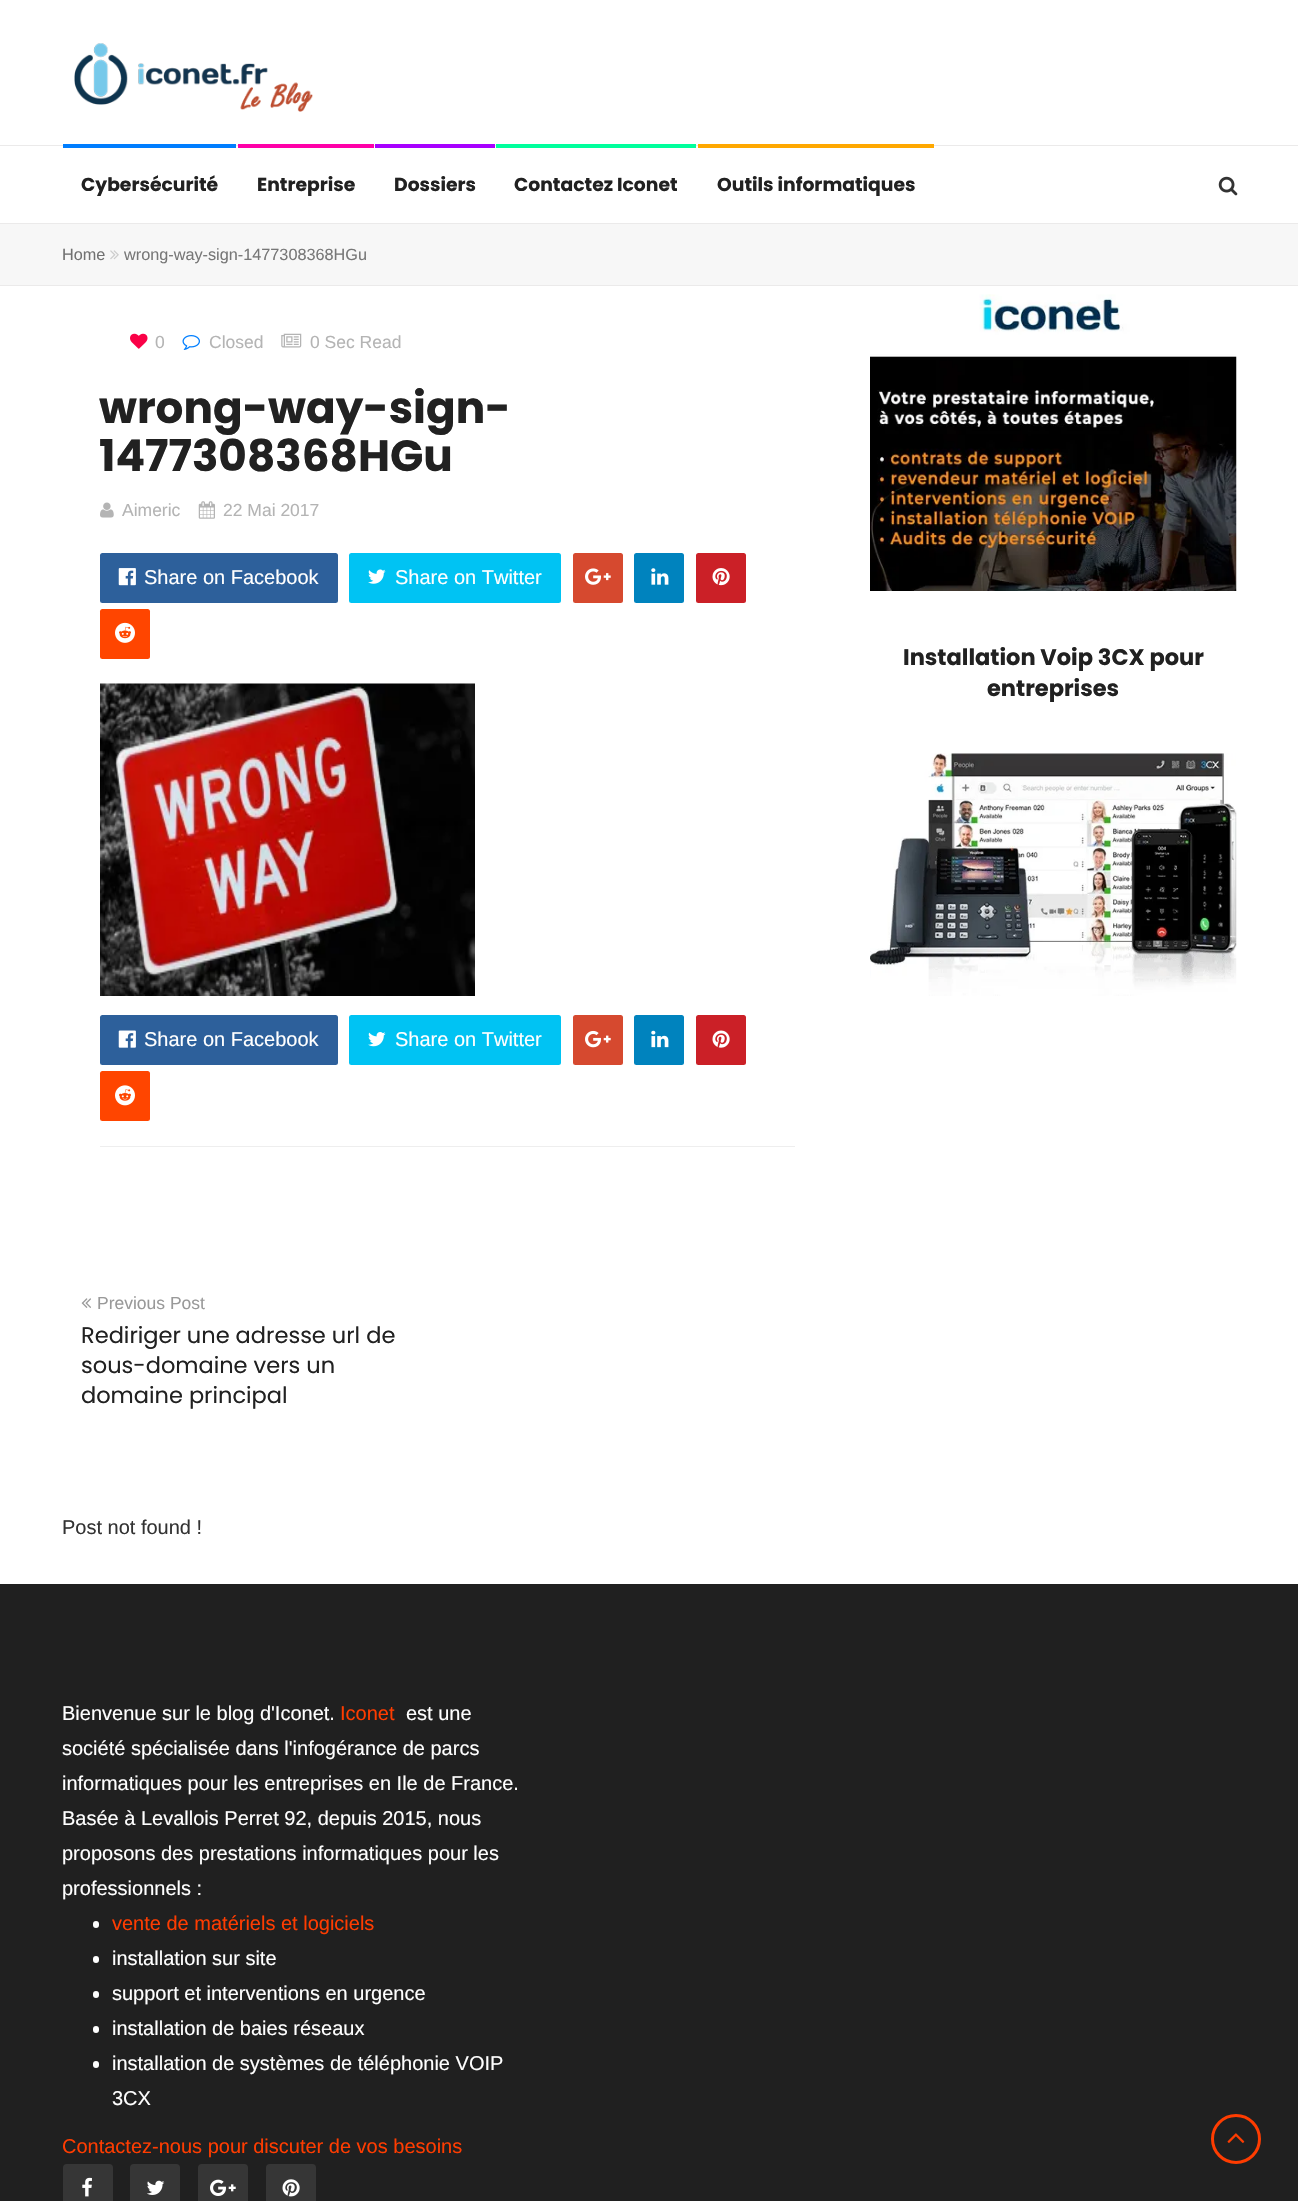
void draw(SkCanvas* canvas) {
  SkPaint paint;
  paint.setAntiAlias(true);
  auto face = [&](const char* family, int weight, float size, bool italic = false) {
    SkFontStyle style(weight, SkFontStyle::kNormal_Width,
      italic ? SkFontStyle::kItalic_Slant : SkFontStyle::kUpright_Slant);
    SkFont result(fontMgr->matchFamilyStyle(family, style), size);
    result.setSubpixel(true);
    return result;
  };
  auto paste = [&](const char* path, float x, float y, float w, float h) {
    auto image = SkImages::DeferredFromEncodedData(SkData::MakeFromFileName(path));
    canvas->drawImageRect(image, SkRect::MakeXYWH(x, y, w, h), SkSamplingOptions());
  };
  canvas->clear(0xffffffff);
  paste("img/1.png", 74, 43, 239, 69);
  {
    const struct { float x, y, w, h; SkColor color; } items[] = {
      {0, 223, 1298, 1, 0xffebeaea},
      {0, 145, 1298, 1, 0xffebeaea},
      {63, 144, 173, 4, 0xff007eff},
      {238, 144, 136, 4, 0xffff00a8},
      {375, 144, 120, 4, 0xffa800ff},
      {496, 144, 200, 4, 0xff00ff9c},
      {698, 144, 236, 4, 0xffffa800},
    };
    for (auto [x, y, w, h, color] : items) {
      paint.setColor(color);
      canvas->drawRect(SkRect::MakeXYWH(x, y, w, h), paint);
    }
  }
  paste("img/2.png", 1218, 176, 20, 20);
  paint.setColor(0xfff7f7f7);
  canvas->drawRect(SkRect::MakeXYWH(0, 224, 1298, 61), paint);
  paint.setColor(0xffebeaea);
  canvas->drawRect(SkRect::MakeXYWH(0, 285, 1298, 1), paint);
  paste("img/3.png", 110, 250, 9, 10);
  paste("img/4.png", 130, 333, 18, 16);
  paste("img/5.png", 182, 335, 18, 15);
  paste("img/6.png", 281, 333, 21, 15);
  paste("img/7.png", 100, 502, 14, 16);
  paste("img/8.png", 198, 501, 17, 18);
  paint.setColor(0xff2d609b);
  canvas->drawRoundRect(SkRect::MakeXYWH(100, 553, 238, 50), 2.5f, 2.5f, paint);
  paste("img/9.png", 118, 568, 18, 18);
  paint.setColor(0xff00c3f3);
  canvas->drawRoundRect(SkRect::MakeXYWH(349, 553, 212, 50), 2.5f, 2.5f, paint);
  paste("img/10.png", 368, 569, 18, 15);
  paint.setColor(0xffd6492f);
  canvas->drawRoundRect(SkRect::MakeXYWH(573, 553, 50, 50), 2.5f, 2.5f, paint);
  paste("img/11.png", 585, 568, 26, 17);
  paint.setColor(0xff0083be);
  canvas->drawRoundRect(SkRect::MakeXYWH(634, 553, 50, 50), 2.5f, 2.5f, paint);
  paste("img/12.png", 651, 568, 18, 17);
  paint.setColor(0xffcb2027);
  canvas->drawRoundRect(SkRect::MakeXYWH(696, 553, 50, 50), 2.5f, 2.5f, paint);
  paste("img/13.png", 712, 568, 18, 18);
  paint.setColor(0xffff4500);
  canvas->drawRoundRect(SkRect::MakeXYWH(100, 609, 50, 50), 2.5f, 2.5f, paint);
  paste("img/14.png", 115, 622, 20, 21);
  paste("img/15.png", 100, 683, 375, 313);
  paint.setColor(0xff2d609b);
  canvas->drawRoundRect(SkRect::MakeXYWH(100, 1015, 238, 50), 2.5f, 2.5f, paint);
  paste("img/16.png", 118, 1030, 18, 18);
  paint.setColor(0xff00c3f3);
  canvas->drawRoundRect(SkRect::MakeXYWH(349, 1015, 212, 50), 2.5f, 2.5f, paint);
  paste("img/17.png", 368, 1032, 18, 15);
  paint.setColor(0xffd6492f);
  canvas->drawRoundRect(SkRect::MakeXYWH(573, 1015, 50, 50), 2.5f, 2.5f, paint);
  paste("img/18.png", 585, 1030, 26, 18);
  paint.setColor(0xff0083be);
  canvas->drawRoundRect(SkRect::MakeXYWH(634, 1015, 50, 50), 2.5f, 2.5f, paint);
  paste("img/19.png", 651, 1030, 18, 18);
  paint.setColor(0xffcb2027);
  canvas->drawRoundRect(SkRect::MakeXYWH(696, 1015, 50, 50), 2.5f, 2.5f, paint);
  paste("img/20.png", 712, 1030, 18, 18);
  paint.setColor(0xffff4500);
  canvas->drawRoundRect(SkRect::MakeXYWH(100, 1071, 50, 50), 2.5f, 2.5f, paint);
  paste("img/21.png", 115, 1085, 20, 21);
  paint.setColor(0xffeeeeee);
  canvas->drawRect(SkRect::MakeXYWH(100, 1146, 695, 1), paint);
  paste("img/22.png", 81, 1298, 10, 10);
  paste("img/23.png", 870, 294, 367, 297);
  paste("img/24.png", 870, 753, 367, 243);
  paint.setColor(0xff202020);
  canvas->drawRect(SkRect::MakeXYWH(0, 1584, 1298, 617), paint);
  paint.setColor(0xffffffff);
  canvas->drawRoundRect(SkRect::MakeXYWH(93, 1921, 6, 7), 3, 3, paint);
  canvas->drawRoundRect(SkRect::MakeXYWH(93, 1956, 6, 7), 3, 3, paint);
  canvas->drawRoundRect(SkRect::MakeXYWH(93, 1991, 6, 7), 3, 3, paint);
  canvas->drawRoundRect(SkRect::MakeXYWH(93, 2026, 6, 7), 3, 3, paint);
  canvas->drawRoundRect(SkRect::MakeXYWH(93, 2061, 6, 7), 3, 3, paint);
  paint.setColor(0xff363636);
  canvas->drawRoundRect(SkRect::MakeXYWH(63, 2164, 50, 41), 4, 4, paint);
  paste("img/25.png", 82, 2177, 10, 20);
  canvas->drawRoundRect(SkRect::MakeXYWH(130, 2164, 50, 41), 4, 4, paint);
  paste("img/26.png", 147, 2180, 18, 15);
  canvas->drawRoundRect(SkRect::MakeXYWH(198, 2164, 50, 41), 4, 4, paint);
  paste("img/27.png", 210, 2179, 26, 17);
  canvas->drawRoundRect(SkRect::MakeXYWH(266, 2164, 50, 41), 4, 4, paint);
  paste("img/28.png", 282, 2179, 18, 18);
  paint.setStroke(true);
  paint.setStrokeWidth(3);
  paint.setColor(0xffff3c00);
  canvas->drawCircle(1236, 2139, 23.5f, paint);
  paste("img/29.png", 1227, 2133, 18, 10);
  auto f0 = face("Poppins", 700, 18.75f);
  paint.setStroke(false);
  paint.setColor(0xff212121);
  {
    const struct { const char* s; float x, y; } items[] = {
      {"Cybersécurité", 81, 191},
      {"Entreprise", 257, 191},
      {"Dossiers", 394, 191},
      {"Contactez Iconet", 514, 191},
      {"Outils informatiques", 717, 191},
    };
    for (auto [s, x, y] : items) {
      canvas->drawString(s, x, y, f0, paint);
    }
  }
  auto f1 = face("Liberation Sans", 400, 16.25f);
  paint.setColor(0xff717171);
  canvas->drawString("Home", 62, 260, f1, paint);
  paint.setColor(0xff777777);
  canvas->drawString("wrong-way-sign-1477308368HGu", 124, 260, f1, paint);
  auto f2 = face("Liberation Sans", 400, 17.5f);
  paint.setColor(0xffb4b4b4);
  {
    const struct { const char* s; float x, y; } items[] = {
      {"0", 155, 348},
      {"Closed", 209, 348},
      {"0 Sec Read", 310, 348},
    };
    for (auto [s, x, y] : items) {
      canvas->drawString(s, x, y, f2, paint);
    }
  }
  auto f3 = face("Poppins", 700, 43.75f);
  paint.setColor(0xff212121);
  canvas->drawString("wrong-way-sign-", 99, 423, f3, paint);
  canvas->drawString("1477308368HGu", 99, 471, f3, paint);
  paint.setColor(0xffb4b4b4);
  canvas->drawString("Aimeric", 122, 516, f2, paint);
  canvas->drawString("22 Mai 2017", 223, 516, f2, paint);
  auto f4 = face("Liberation Sans", 400, 20);
  paint.setColor(0xffffffff);
  {
    const struct { const char* s; float x, y; } items[] = {
      {"Share on Facebook", 144, 584},
      {"Share on Twitter", 395, 584},
      {"Share on Facebook", 144, 1046},
      {"Share on Twitter", 395, 1046},
    };
    for (auto [s, x, y] : items) {
      canvas->drawString(s, x, y, f4, paint);
    }
  }
  paint.setColor(0xff999999);
  canvas->drawString("Previous Post", 97, 1309, f2, paint);
  auto f5 = face("Poppins", 400, 22.5f);
  paint.setColor(0xff212121);
  {
    const struct { const char* s; float x, y; } items[] = {
      {"Rediriger une adresse url de", 81, 1343},
      {"sous-domaine vers un", 81, 1373},
      {"domaine principal", 81, 1403},
    };
    for (auto [s, x, y] : items) {
      canvas->drawString(s, x, y, f5, paint);
    }
  }
  paint.setColor(0xff333333);
  canvas->drawString("Post not found !", 62, 1534, f4, paint);
  auto f6 = face("Poppins", 700, 22.5f);
  paint.setColor(0xff212121);
  canvas->drawString("Installation Voip 3CX pour", 903, 665, f6, paint);
  canvas->drawString("entreprises", 987, 696, f6, paint);
  paint.setColor(0xffffffff);
  canvas->drawString("Bienvenue sur le blog d'Iconet.", 62, 1720, f4, paint);
  paint.setColor(0xffff3c00);
  canvas->drawString("Iconet", 340, 1720, f4, paint);
  paint.setColor(0xffffffff);
  {
    const struct { const char* s; float x, y; } items[] = {
      {"est une", 406, 1720},
      {"société spécialisée dans l'infogérance de parcs", 62, 1755},
      {"informatiques pour les entreprises en Ile de France.", 62, 1790},
      {"Basée à Levallois Perret 92, depuis 2015, nous", 62, 1825},
      {"proposons des prestations informatiques pour les", 62, 1860},
      {"professionnels :", 62, 1895},
    };
    for (auto [s, x, y] : items) {
      canvas->drawString(s, x, y, f4, paint);
    }
  }
  paint.setColor(0xffff3c00);
  canvas->drawString("vente de matériels et logiciels", 112, 1930, f4, paint);
  paint.setColor(0xffffffff);
  {
    const struct { const char* s; float x, y; } items[] = {
      {"installation sur site", 112, 1965},
      {"support et interventions en urgence", 112, 2000},
      {"installation de baies réseaux", 112, 2035},
      {"installation de systèmes de téléphonie VOIP", 112, 2070},
      {"3CX", 112, 2105},
    };
    for (auto [s, x, y] : items) {
      canvas->drawString(s, x, y, f4, paint);
    }
  }
  paint.setColor(0xffff3c00);
  canvas->drawString("Contactez-nous pour discuter de vos besoins", 62, 2153, f4, paint);
}
